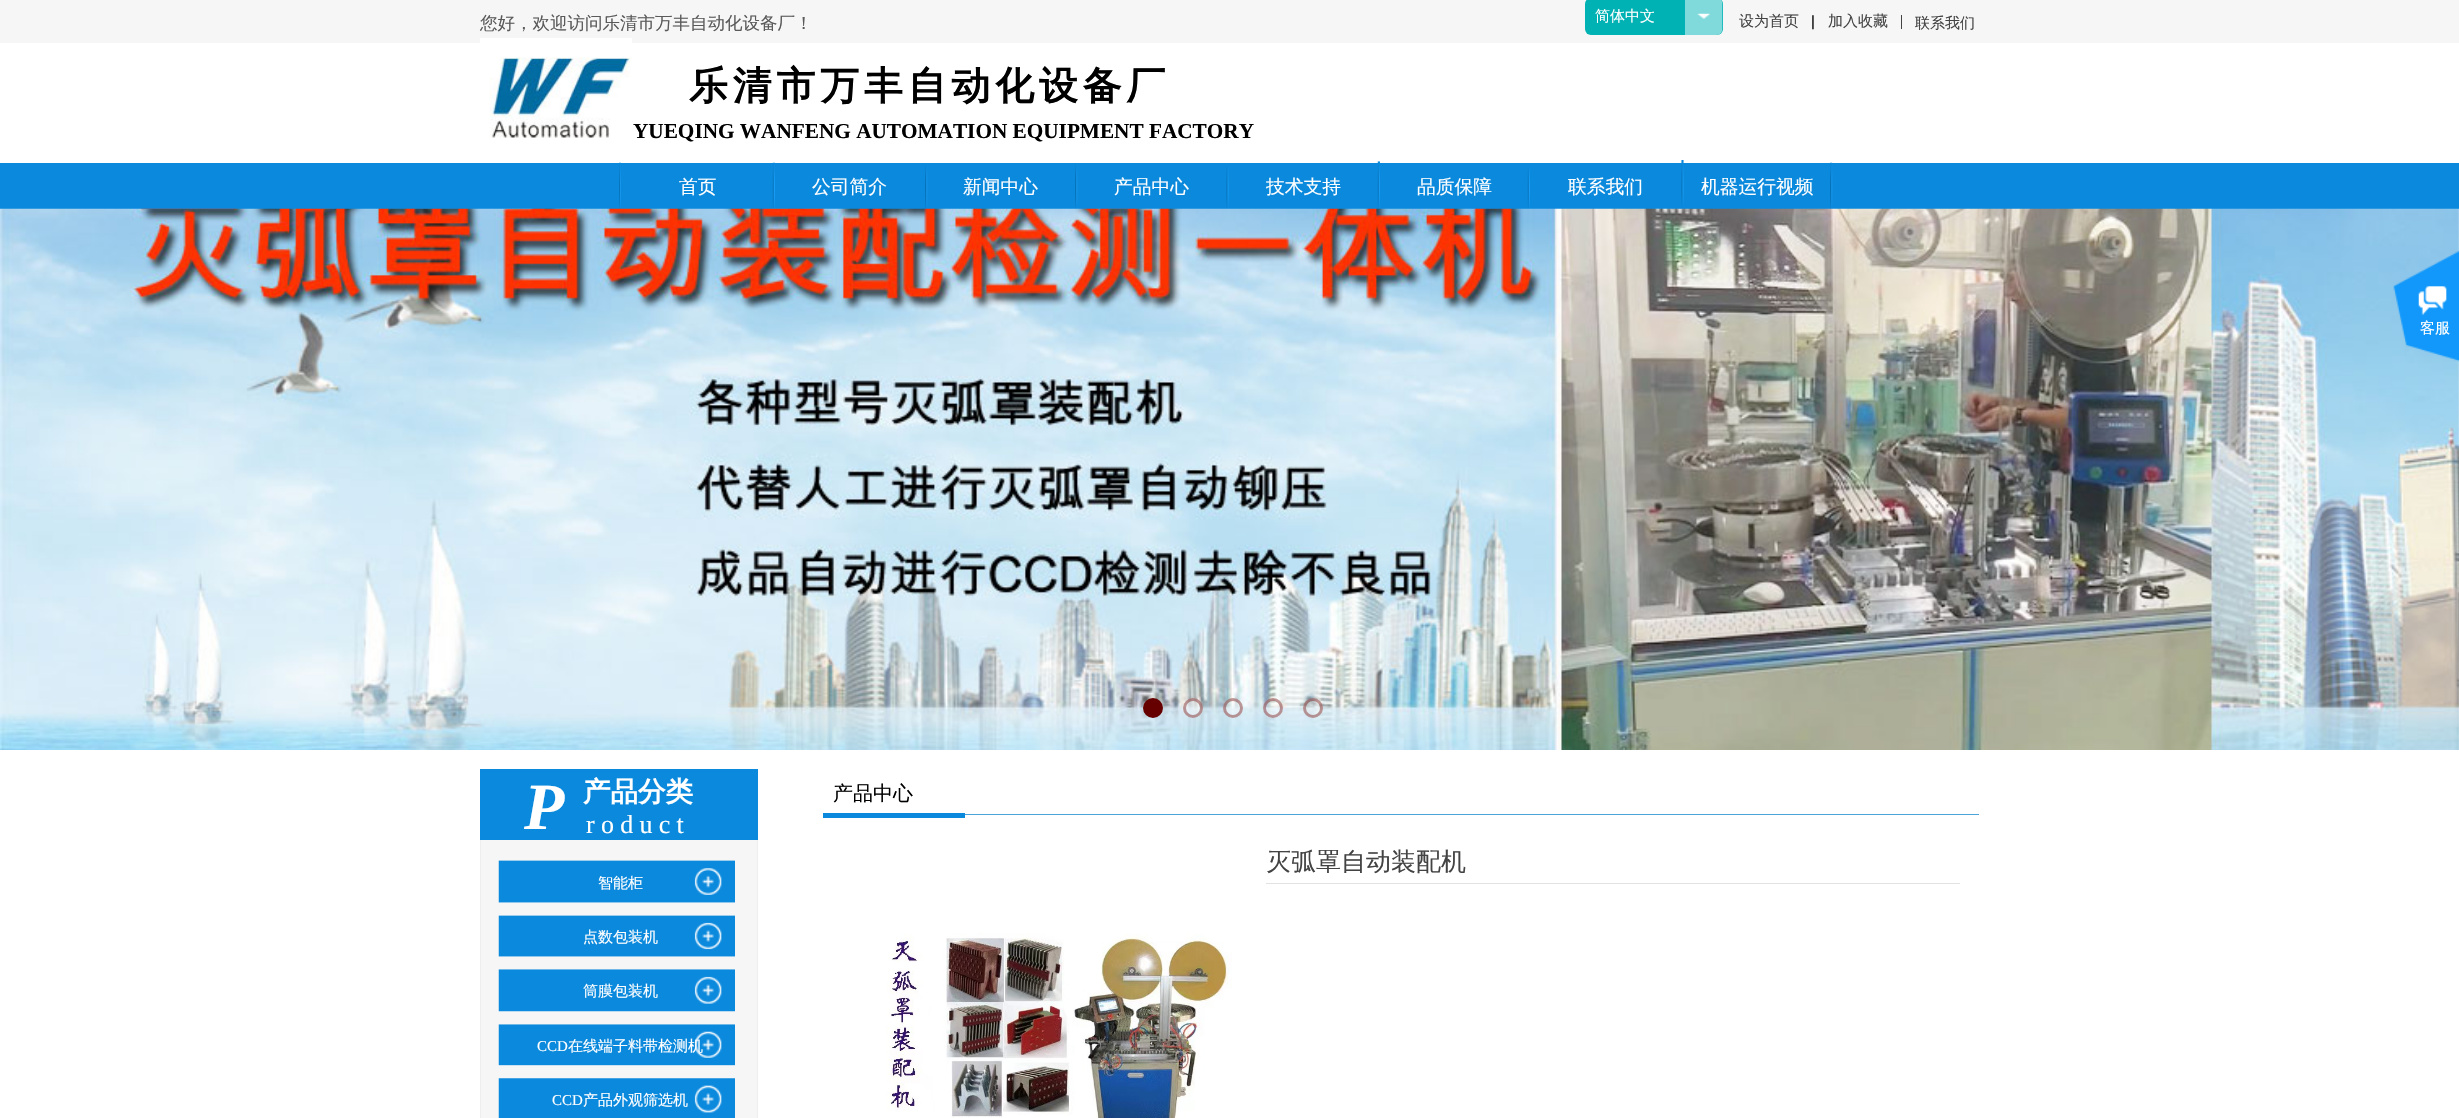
void draw(SkCanvas* canvas) {
  SkPaint paint;
  paint.setAntiAlias(true);
  auto face = [&](const char* family, int weight, float size, bool italic = false) {
    SkFontStyle style(weight, SkFontStyle::kNormal_Width,
      italic ? SkFontStyle::kItalic_Slant : SkFontStyle::kUpright_Slant);
    SkFont result(fontMgr->matchFamilyStyle(family, style), size);
    result.setSubpixel(true);
    return result;
  };
  auto writeSpaced = [&](const char* s, float x, float y, const SkFont& font, const SkPaint& ink, float letter, float word) {
    std::vector<SkGlyphID> glyphs(font.countText(s, strlen(s), SkTextEncoding::kUTF8));
    std::vector<float> xs(glyphs.size());
    font.textToGlyphs(s, strlen(s), SkTextEncoding::kUTF8, glyphs);
    font.getXPos(glyphs, xs, x);
    float extra = 0;
    for (size_t i = 0; i < glyphs.size(); i++) {
      xs[i] += extra;
      extra += letter + word * (glyphs[i] == font.unicharToGlyph(' '));
    }
    canvas->drawTextBlob(SkTextBlob::MakeFromPosHGlyphs(glyphs, xs, y, font), 0, 0, ink);
  };
  auto paste = [&](const char* path, float x, float y, float w, float h) {
    auto image = SkImages::DeferredFromEncodedData(SkData::MakeFromFileName(path));
    canvas->drawImageRect(image, SkRect::MakeXYWH(x, y, w, h), SkSamplingOptions());
  };
  canvas->clear(0xffffffff);
  paint.setColor(0xfff6f6f6);
  canvas->drawRect(SkRect::MakeXYWH(0, 0, 2459, 43), paint);
  paint.setColor(0xff00b2b4);
  canvas->drawRoundRect(SkRect::MakeXYWH(1585, -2, 138, 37), 6, 6, paint);
  paste("img/1.png", 1685, 0, 38, 35);
  paint.setColor(0xff434343);
  canvas->drawRect(SkRect::MakeXYWH(1901, 15, 1, 14), paint);
  paste("img/2.png", 480, 38, 152, 100);
  paint.setColor(0xff0b89dd);
  canvas->drawRect(SkRect::MakeXYWH(0, 163, 2459, 46), paint);
  paste("img/3.png", 619, 162, 2, 47);
  paste("img/4.png", 772, 162, 3, 47);
  paste("img/5.png", 1377, 161, 3, 47);
  paste("img/6.png", 1681, 160, 3, 47);
  paste("img/7.png", 1830, 162, 3, 47);
  paste("img/8.png", 925, 165, 3, 44);
  paste("img/9.png", 1075, 164, 3, 45);
  paste("img/10.png", 1226, 167, 3, 42);
  paste("img/11.png", 1527, 167, 3, 42);
  paste("img/12.png", 0, 208, 2459, 542);
  paint.setColor(0xff660000);
  canvas->drawCircle(1153, 708, 8.5f, paint);
  paint.setStroke(true);
  paint.setStrokeWidth(3);
  canvas->drawCircle(1153, 708, 8.5f, paint);
  paint.setStroke(false);
  paint.setColor(0x66ffffff);
  canvas->drawCircle(1193, 708, 10, paint);
  paint.setStroke(true);
  paint.setColor(0x66660000);
  canvas->drawCircle(1193, 708, 8.5f, paint);
  paint.setStroke(false);
  paint.setColor(0x66ffffff);
  canvas->drawCircle(1233, 708, 10, paint);
  paint.setStroke(true);
  paint.setColor(0x66660000);
  canvas->drawCircle(1233, 708, 8.5f, paint);
  paint.setStroke(false);
  paint.setColor(0x66ffffff);
  canvas->drawCircle(1273, 708, 10, paint);
  paint.setStroke(true);
  paint.setColor(0x66660000);
  canvas->drawCircle(1273, 708, 8.5f, paint);
  paint.setStroke(false);
  paint.setColor(0x66ffffff);
  canvas->drawCircle(1313, 708, 10, paint);
  paint.setStroke(true);
  paint.setColor(0x66660000);
  canvas->drawCircle(1313, 708, 8.5f, paint);
  paint.setStroke(false);
  paint.setColor(0xfff6f6f6);
  canvas->drawRect(SkRect::MakeXYWH(481, 840, 276, 278), paint);
  paint.setStroke(true);
  paint.setStrokeWidth(1);
  paint.setColor(0xffeeeeee);
  canvas->drawRect(SkRect::MakeXYWH(480.5f, 776.5f, 277, 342), paint);
  paint.setStroke(false);
  {
    const struct { float x, y, w, h; SkColor color; } items[] = {
      {480, 769, 278, 71, 0xff0b89dd},
      {823, 813, 142, 5, 0xff0b89dd},
      {965, 814, 1014, 1, 0xff4fa3db},
      {1266, 883, 694, 1, 0xffe2e2e2},
    };
    for (auto [x, y, w, h, color] : items) {
      paint.setColor(color);
      canvas->drawRect(SkRect::MakeXYWH(x, y, w, h), paint);
    }
  }
  paste("img/13.png", 886, 933, 346, 185);
  paste("img/14.png", 498, 860, 237, 43);
  paste("img/15.png", 498, 915, 237, 42);
  paste("img/16.png", 498, 969, 237, 43);
  paste("img/17.png", 498, 1024, 237, 42);
  paste("img/18.png", 498, 1078, 237, 40);
  paste("img/19.png", 2393, 250, 66, 112);
  auto f0 = face("WenQuanYi Zen Hei", 500, 15);
  paint.setColor(0xffffffff);
  canvas->drawString("简体中文", 1595, 21, f0, paint);
  auto f1 = face("WenQuanYi Zen Hei", 500, 17.5f);
  paint.setColor(0xff5a5a5a);
  canvas->drawString("您好，欢迎访问乐清市万丰自动化设备厂！", 480, 29, f1, paint);
  paint.setColor(0xff434343);
  canvas->drawString("设为首页", 1739, 26, f0, paint);
  auto f2 = face("Liberation Sans", 400, 15);
  paint.setColor(0xff000000);
  canvas->drawString("|", 1811, 26, f2, paint);
  paint.setColor(0xff434343);
  canvas->drawString("加入收藏", 1828, 26, f0, paint);
  canvas->drawString("联系我们", 1915, 28, f0, paint);
  auto f3 = face("WenQuanYi Zen Hei", 700, 38.75f);
  paint.setColor(0xff000000);
  writeSpaced("乐清市万丰自动化设备厂", 689, 99, f3, paint, 5, 0);
  auto f4 = face("Liberation Serif", 700, 21.25f);
  canvas->drawString("YUEQING WANFENG AUTOMATION EQUIPMENT FACTORY", 633, 138, f4, paint);
  auto f5 = face("WenQuanYi Zen Hei", 500, 18.75f);
  paint.setColor(0xffffffff);
  {
    const struct { const char* s; float x, y; } items[] = {
      {"首页", 679, 193},
      {"公司简介", 812, 193},
      {"新闻中心", 963, 193},
      {"产品中心", 1114, 193},
      {"技术支持", 1266, 193},
      {"品质保障", 1417, 193},
      {"联系我们", 1568, 193},
      {"机器运行视频", 1701, 193},
    };
    for (auto [s, x, y] : items) {
      canvas->drawString(s, x, y, f5, paint);
    }
  }
  auto f6 = face("Liberation Serif", 700, 66, true);
  canvas->drawString("P", 524, 829, f6, paint);
  auto f7 = face("WenQuanYi Zen Hei", 700, 27.5f);
  canvas->drawString("产品分类", 583, 801, f7, paint);
  auto f8 = face("WenQuanYi Zen Hei", 500, 20);
  paint.setColor(0xff000000);
  canvas->drawString("产品中心", 833, 800, f8, paint);
  auto f9 = face("Liberation Serif", 400, 26);
  paint.setColor(0xffffffff);
  writeSpaced("roduct", 586, 833, f9, paint, 6.25f, 0);
  auto f10 = face("WenQuanYi Zen Hei", 500, 25);
  paint.setColor(0xff434343);
  canvas->drawString("灭弧罩自动装配机", 1266, 870, f10, paint);
  paint.setColor(0xffffffff);
  {
    const struct { const char* s; float x, y; } items[] = {
      {"智能柜", 598, 888},
      {"点数包装机", 583, 942},
      {"筒膜包装机", 583, 996},
    };
    for (auto [s, x, y] : items) {
      canvas->drawString(s, x, y, f0, paint);
    }
  }
  auto f11 = face("Liberation Serif", 400, 15);
  canvas->drawString("CCD", 537, 1051, f11, paint);
  canvas->drawString("在线端子料带检测机", 568, 1051, f0, paint);
  canvas->drawString("CCD", 552, 1105, f11, paint);
  canvas->drawString("产品外观筛选机", 583, 1105, f0, paint);
  canvas->drawString("客服", 2420, 333, f0, paint);
}
